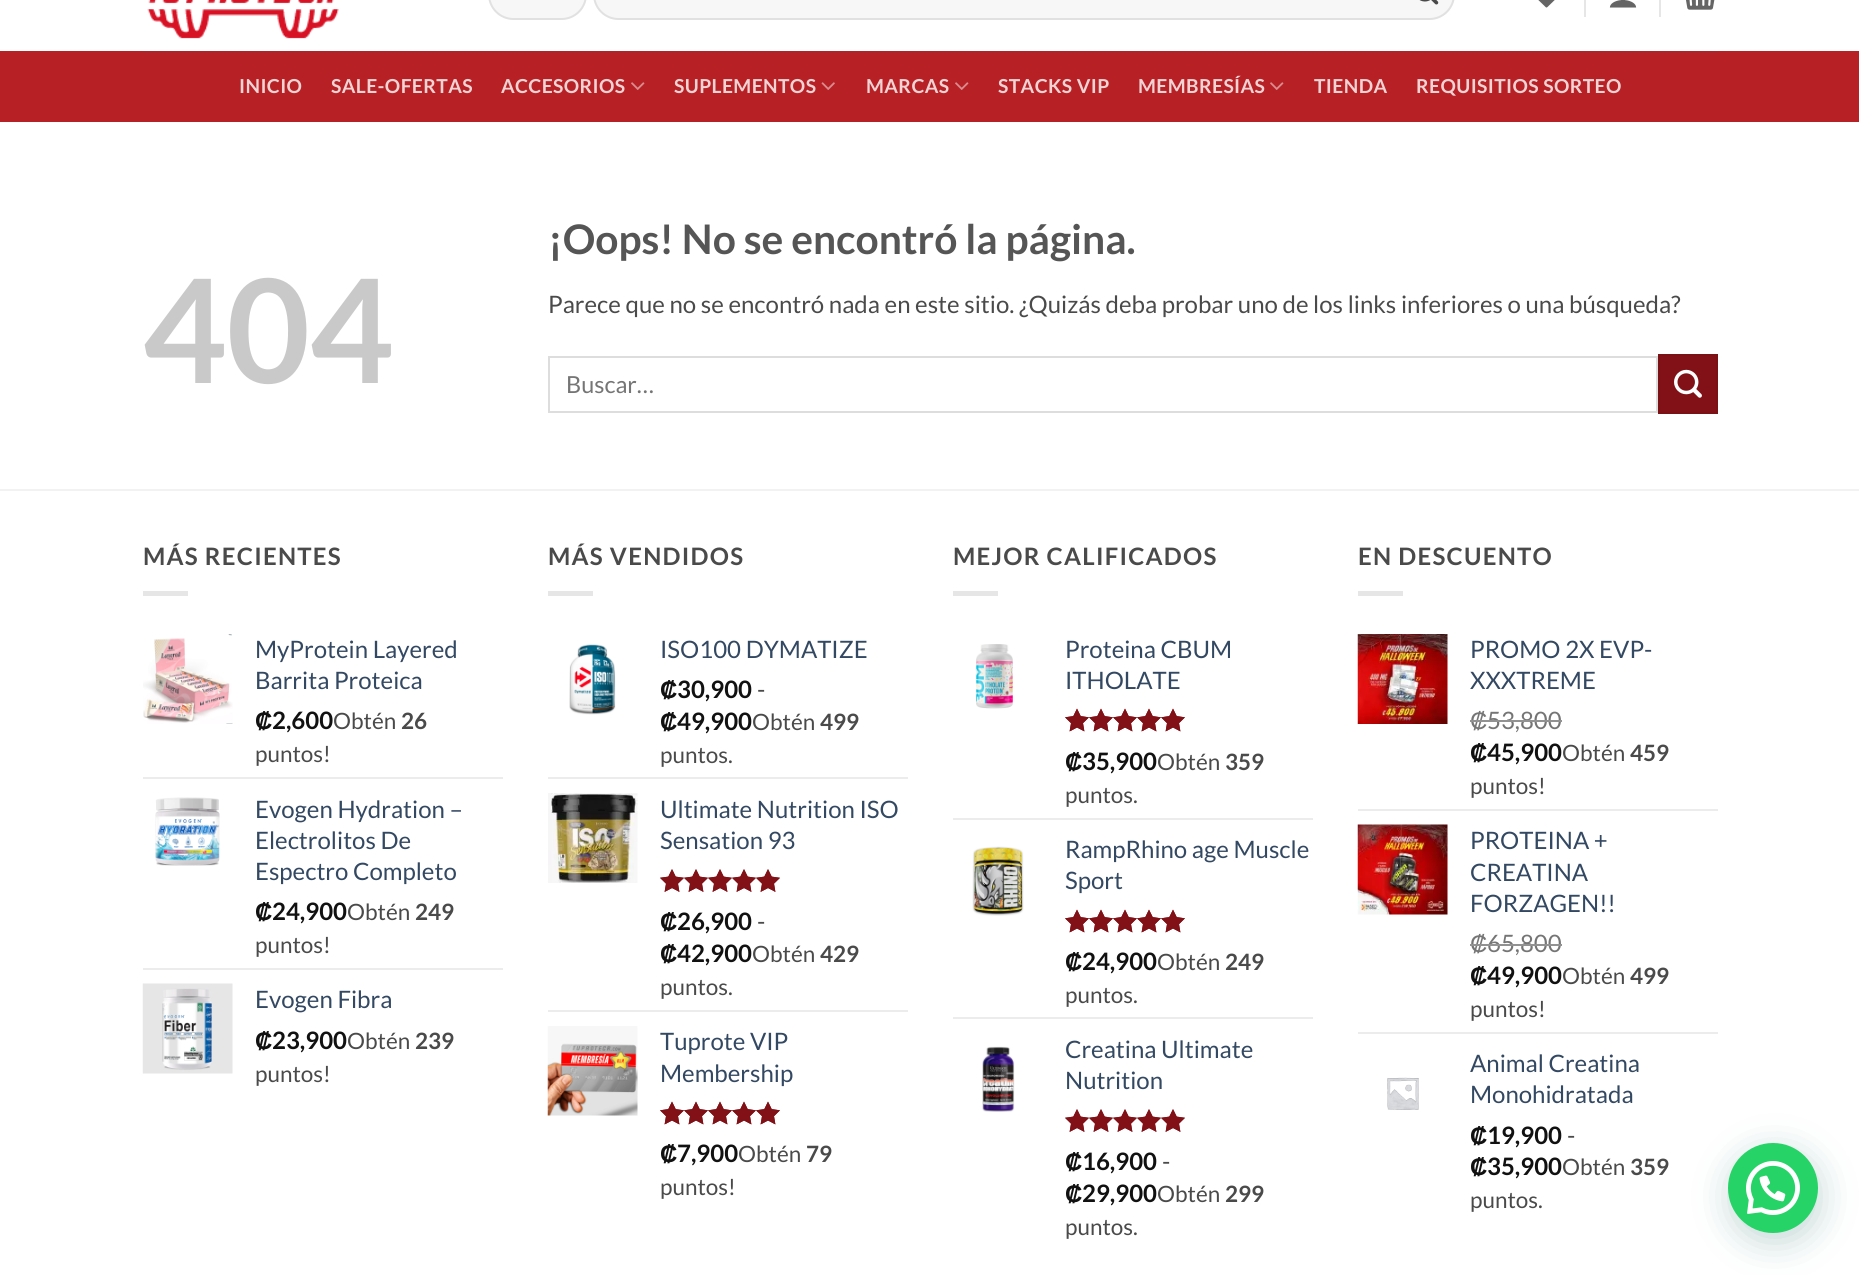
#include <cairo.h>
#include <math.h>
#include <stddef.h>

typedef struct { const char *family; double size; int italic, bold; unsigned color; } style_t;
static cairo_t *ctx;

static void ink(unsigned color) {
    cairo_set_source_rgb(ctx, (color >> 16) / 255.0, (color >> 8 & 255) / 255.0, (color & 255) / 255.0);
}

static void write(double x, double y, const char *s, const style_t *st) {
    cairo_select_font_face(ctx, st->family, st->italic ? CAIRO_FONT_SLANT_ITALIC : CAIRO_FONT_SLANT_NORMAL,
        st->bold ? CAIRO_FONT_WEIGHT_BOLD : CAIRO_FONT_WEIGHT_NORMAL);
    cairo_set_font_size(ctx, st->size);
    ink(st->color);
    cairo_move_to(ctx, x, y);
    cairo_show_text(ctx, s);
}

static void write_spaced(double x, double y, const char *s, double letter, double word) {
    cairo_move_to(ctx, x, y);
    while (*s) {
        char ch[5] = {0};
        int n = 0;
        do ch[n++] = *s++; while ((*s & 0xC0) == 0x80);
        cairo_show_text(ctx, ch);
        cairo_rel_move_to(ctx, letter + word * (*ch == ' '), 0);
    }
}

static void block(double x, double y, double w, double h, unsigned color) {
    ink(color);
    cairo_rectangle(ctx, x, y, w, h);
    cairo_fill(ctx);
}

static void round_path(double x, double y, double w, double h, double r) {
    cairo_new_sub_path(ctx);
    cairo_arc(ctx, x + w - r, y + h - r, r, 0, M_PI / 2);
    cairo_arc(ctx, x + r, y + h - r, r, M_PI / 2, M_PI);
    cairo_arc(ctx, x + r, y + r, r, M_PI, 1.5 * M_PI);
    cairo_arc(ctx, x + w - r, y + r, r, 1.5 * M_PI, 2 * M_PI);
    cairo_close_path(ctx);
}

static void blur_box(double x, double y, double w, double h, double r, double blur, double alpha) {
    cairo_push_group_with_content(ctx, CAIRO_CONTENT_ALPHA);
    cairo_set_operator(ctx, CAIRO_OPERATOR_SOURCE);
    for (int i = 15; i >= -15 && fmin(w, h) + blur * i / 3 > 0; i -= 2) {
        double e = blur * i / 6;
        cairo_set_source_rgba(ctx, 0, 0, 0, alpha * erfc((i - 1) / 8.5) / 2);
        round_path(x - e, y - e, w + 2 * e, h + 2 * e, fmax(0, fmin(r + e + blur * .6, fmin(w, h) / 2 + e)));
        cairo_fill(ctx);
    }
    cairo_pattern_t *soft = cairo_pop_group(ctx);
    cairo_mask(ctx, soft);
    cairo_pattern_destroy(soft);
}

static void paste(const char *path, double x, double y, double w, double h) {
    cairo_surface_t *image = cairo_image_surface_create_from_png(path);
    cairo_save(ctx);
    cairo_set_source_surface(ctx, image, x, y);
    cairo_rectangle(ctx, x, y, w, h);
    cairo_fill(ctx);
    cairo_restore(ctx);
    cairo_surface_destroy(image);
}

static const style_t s1 = {"Lato", 144, 0, 1, 0xc9c9c9};
static const style_t s2 = {"Lato", 40.75, 0, 1, 0x555555};
static const style_t s3 = {"Lato", 24, 0, 0, 0x4a4a4a};
static const style_t s4 = {"Lato", 23.5, 0, 0, 0x757575};
static const style_t s5 = {"Lato", 24, 0, 0, 0x334862};
static const style_t s6 = {"Liberation Sans", 24, 0, 1, 0x111111};
static const style_t s7 = {"Lato", 24, 0, 1, 0x111111};
static const style_t s8 = {"Lato", 22.5, 0, 0, 0x4a4a4a};
static const style_t s9 = {"Lato", 22.5, 0, 1, 0x4a4a4a};
static const style_t s10 = {"Liberation Sans", 24, 0, 0, 0x757575};
static const style_t s11 = {"Lato", 24, 0, 0, 0x757575};

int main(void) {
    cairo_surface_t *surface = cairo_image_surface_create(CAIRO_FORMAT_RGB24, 1859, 1275);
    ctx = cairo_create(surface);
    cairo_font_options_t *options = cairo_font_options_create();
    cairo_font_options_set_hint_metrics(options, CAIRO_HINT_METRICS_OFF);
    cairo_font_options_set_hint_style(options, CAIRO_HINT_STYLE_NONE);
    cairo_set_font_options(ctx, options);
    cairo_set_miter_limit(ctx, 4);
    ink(0xffffff);
    cairo_paint(ctx);
    paste("pic1.png", 147, 0, 192, 39);
    ink(0xf7f7f7);
    round_path(488, -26, 99, 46, 25.5);
    cairo_fill(ctx);
    round_path(489, -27, 97, 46, 24.5);
    cairo_set_source_rgba(ctx, 0, 0, 0, 0.09);
    cairo_stroke(ctx);
    ink(0xf7f7f7);
    round_path(593, -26, 862, 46, 25.5);
    cairo_fill(ctx);
    round_path(594, -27, 860, 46, 24.5);
    cairo_set_source_rgba(ctx, 0, 0, 0, 0.09);
    cairo_stroke(ctx);
    paste("pic2.png", 1419, 0, 20, 5);
    paste("pic3.png", 1538, 0, 17, 8);
    block(1584, 0, 2, 17, 0xe6e6e6);
    paste("pic4.png", 1609, 0, 28, 8);
    block(1659, 0, 2, 17, 0xe6e6e6);
    paste("pic5.png", 1686, 0, 29, 10);
    block(0, 51, 1859, 71, 0xb72126);
    block(143, 51, 1575, 2, 0xac252a);
    cairo_select_font_face(ctx, "Lato", CAIRO_FONT_SLANT_NORMAL, CAIRO_FONT_WEIGHT_BOLD);
    cairo_set_font_size(ctx, 19.25);
    ink(0xf1d3d4);
    write_spaced(239, 93, "INICIO", 0.4, 0);
    write_spaced(331, 93, "SALE-OFERTAS", 0.4, 0);
    write_spaced(501, 93, "ACCESORIOS", 0.4, 0);
    paste("pic6.png", 631, 82, 14, 8);
    write_spaced(674, 93, "SUPLEMENTOS", 0.4, 0);
    paste("pic7.png", 821, 82, 14, 8);
    write_spaced(866, 93, "MARCAS", 0.4, 0);
    paste("pic6.png", 955, 82, 14, 8);
    write_spaced(998, 93, "STACKS VIP", 0.4, 0);
    write_spaced(1138, 93, "MEMBRESÍAS", 0.4, 0);
    paste("pic6.png", 1270, 82, 14, 8);
    write_spaced(1314, 93, "TIENDA", 0.4, 0);
    write_spaced(1416, 93, "REQUISITIOS SORTEO", 0.4, 0);
    write(143, 383, "404", &s1);
    write(548, 254, "¡Oops! No se encontró la página.", &s2);
    write(548, 313, "Parece que no se encontró nada en este sitio. ¿Quizás deba probar uno de los links inferiores o una búsqueda?", &s3);
    cairo_rectangle(ctx, 549, 357, 1108, 55);
    ink(0xdddddd);
    cairo_stroke(ctx);
    write(566, 393, "Buscar…", &s4);
    ink(0x811116);
    cairo_rectangle(ctx, 1659, 355, 58, 58);
    cairo_fill_preserve(ctx);
    ink(0x7b1015);
    cairo_stroke(ctx);
    paste("pic8.png", 1674, 369, 28, 29);
    block(0, 489, 1859, 2, 0xf2f2f2);
    cairo_select_font_face(ctx, "Lato", CAIRO_FONT_SLANT_NORMAL, CAIRO_FONT_WEIGHT_BOLD);
    cairo_set_font_size(ctx, 24);
    ink(0x4a4a4a);
    write_spaced(143, 565, "MÁS RECIENTES", 1.25, 0);
    block(143, 591, 45, 5, 0xe6e6e6);
    paste("pic9.png", 143, 634, 90, 90);
    write(255, 658, "MyProtein Layered", &s5);
    write(255, 689, "Barrita Proteica", &s5);
    write(255, 729, "₡", &s6);
    write(272, 729, "2,600", &s7);
    write(333, 729, "Obtén", &s8);
    write(401, 729, "26", &s9);
    write(255, 762, "puntos!", &s8);
    block(143, 777, 360, 2, 0xececec);
    paste("pic10.png", 155, 797, 65, 69);
    write(255, 818, "Evogen Hydration –", &s5);
    write(255, 849, "Electrolitos De", &s5);
    write(255, 880, "Espectro Completo", &s5);
    write(255, 920, "₡", &s6);
    write(272, 920, "24,900", &s7);
    write(347, 920, "Obtén", &s8);
    write(415, 920, "249", &s9);
    write(255, 953, "puntos!", &s8);
    block(143, 968, 360, 2, 0xececec);
    paste("pic11.png", 142, 983, 91, 91);
    write(255, 1008, "Evogen Fibra", &s5);
    write(255, 1049, "₡", &s6);
    write(272, 1049, "23,900", &s7);
    write(347, 1049, "Obtén", &s8);
    write(415, 1049, "239", &s9);
    write(255, 1082, "puntos!", &s8);
    cairo_select_font_face(ctx, "Lato", CAIRO_FONT_SLANT_NORMAL, CAIRO_FONT_WEIGHT_BOLD);
    cairo_set_font_size(ctx, 24);
    write_spaced(548, 565, "MÁS VENDIDOS", 1.25, 0);
    block(548, 591, 45, 5, 0xe6e6e6);
    paste("pic12.png", 569, 644, 47, 71);
    write(660, 658, "ISO100 DYMATIZE", &s5);
    write(660, 698, "₡", &s6);
    write(677, 698, "30,900", &s7);
    write(757, 698, "-", &s3);
    write(660, 730, "₡", &s6);
    write(677, 730, "49,900", &s7);
    write(752, 730, "Obtén", &s8);
    write(820, 730, "499", &s9);
    write(660, 763, "puntos.", &s8);
    block(548, 777, 360, 2, 0xececec);
    paste("pic13.png", 548, 793, 90, 90);
    write(660, 818, "Ultimate Nutrition ISO", &s5);
    write(660, 849, "Sensation 93", &s5);
    paste("pic14.png", 660, 869, 120, 23);
    paste("pic15.png", 660, 869, 120, 23);
    write(660, 930, "₡", &s6);
    write(677, 930, "26,900", &s7);
    write(757, 930, "-", &s3);
    write(660, 962, "₡", &s6);
    write(677, 962, "42,900", &s7);
    write(752, 962, "Obtén", &s8);
    write(820, 962, "429", &s9);
    write(660, 995, "puntos.", &s8);
    block(548, 1010, 360, 2, 0xececec);
    paste("pic16.png", 547, 1026, 91, 90);
    write(660, 1050, "Tuprote VIP", &s5);
    write(660, 1082, "Membership", &s5);
    paste("pic17.png", 660, 1101, 120, 24);
    paste("pic18.png", 660, 1101, 120, 24);
    write(660, 1162, "₡", &s6);
    write(677, 1162, "7,900", &s7);
    write(738, 1162, "Obtén", &s8);
    write(806, 1162, "79", &s9);
    write(660, 1195, "puntos!", &s8);
    cairo_select_font_face(ctx, "Lato", CAIRO_FONT_SLANT_NORMAL, CAIRO_FONT_WEIGHT_BOLD);
    cairo_set_font_size(ctx, 24);
    write_spaced(953, 565, "MEJOR CALIFICADOS", 1.25, 0);
    block(953, 591, 45, 5, 0xe6e6e6);
    paste("pic19.png", 976, 644, 37, 65);
    write(1065, 658, "Proteina CBUM", &s5);
    write(1065, 689, "ITHOLATE", &s5);
    paste("pic17.png", 1065, 708, 120, 24);
    paste("pic18.png", 1065, 708, 120, 24);
    write(1065, 770, "₡", &s6);
    write(1082, 770, "35,900", &s7);
    write(1157, 770, "Obtén", &s8);
    write(1225, 770, "359", &s9);
    write(1065, 803, "puntos.", &s8);
    block(953, 818, 360, 2, 0xececec);
    paste("pic20.png", 972, 846, 52, 70);
    write(1065, 858, "RampRhino age Muscle", &s5);
    write(1065, 889, "Sport", &s5);
    paste("pic17.png", 1065, 909, 120, 24);
    paste("pic18.png", 1065, 909, 120, 24);
    write(1065, 970, "₡", &s6);
    write(1082, 970, "24,900", &s7);
    write(1157, 970, "Obtén", &s8);
    write(1225, 970, "249", &s9);
    write(1065, 1003, "puntos.", &s8);
    block(953, 1017, 360, 2, 0xececec);
    paste("pic21.png", 982, 1046, 33, 66);
    write(1065, 1058, "Creatina Ultimate", &s5);
    write(1065, 1089, "Nutrition", &s5);
    paste("pic14.png", 1065, 1109, 120, 23);
    paste("pic15.png", 1065, 1109, 120, 23);
    write(1065, 1170, "₡", &s6);
    write(1082, 1170, "16,900", &s7);
    write(1162, 1170, "-", &s3);
    write(1065, 1202, "₡", &s6);
    write(1082, 1202, "29,900", &s7);
    write(1157, 1202, "Obtén", &s8);
    write(1225, 1202, "299", &s9);
    write(1065, 1235, "puntos.", &s8);
    cairo_select_font_face(ctx, "Lato", CAIRO_FONT_SLANT_NORMAL, CAIRO_FONT_WEIGHT_BOLD);
    cairo_set_font_size(ctx, 24);
    write_spaced(1358, 565, "EN DESCUENTO", 1.25, 0);
    block(1358, 591, 45, 5, 0xe6e6e6);
    paste("pic22.png", 1357, 634, 91, 90);
    write(1470, 658, "PROMO 2X EVP-", &s5);
    write(1470, 689, "XXXTREME", &s5);
    write(1470, 729, "₡", &s10);
    block(1470, 720, 18, 2, 0x929292);
    write(1487, 729, "53,800", &s11);
    block(1488, 720, 74, 2, 0x929292);
    write(1470, 761, "₡", &s6);
    write(1487, 761, "45,900", &s7);
    write(1562, 761, "Obtén", &s8);
    write(1630, 761, "459", &s9);
    write(1470, 794, "puntos!", &s8);
    block(1358, 809, 360, 2, 0xececec);
    paste("pic23.png", 1357, 824, 91, 91);
    write(1470, 849, "PROTEINA +", &s5);
    write(1470, 881, "CREATINA", &s5);
    write(1470, 912, "FORZAGEN!!", &s5);
    write(1470, 952, "₡", &s10);
    write(1487, 952, "65,800", &s11);
    block(1470, 944, 18, 2, 0x929292);
    block(1488, 944, 74, 2, 0x929292);
    write(1470, 984, "₡", &s6);
    write(1487, 984, "49,900", &s7);
    write(1562, 984, "Obtén", &s8);
    write(1630, 984, "499", &s9);
    write(1470, 1017, "puntos!", &s8);
    block(1358, 1032, 360, 2, 0xececec);
    write(1470, 1072, "Animal Creatina", &s5);
    paste("pic24.png", 1387, 1077, 32, 33);
    write(1470, 1103, "Monohidratada", &s5);
    write(1470, 1144, "₡", &s6);
    write(1487, 1144, "19,900", &s7);
    write(1567, 1144, "-", &s3);
    write(1470, 1175, "₡", &s6);
    write(1487, 1175, "35,900", &s7);
    write(1562, 1175, "Obtén", &s8);
    write(1630, 1175, "359", &s9);
    write(1470, 1208, "puntos.", &s8);
    ink(0x075e54);
    blur_box(1730, 1152, 90, 90, 45, 18, 0.24);
    ink(0x25d366);
    cairo_arc(ctx, 1773, 1188, 45, 0, 2 * M_PI);
    cairo_fill(ctx);
    paste("pic25.png", 1746, 1161, 54, 54);
    cairo_surface_write_to_png(surface, "screenshot.png");
    cairo_font_options_destroy(options);
    cairo_destroy(ctx);
    cairo_surface_destroy(surface);
    return 0;
}
